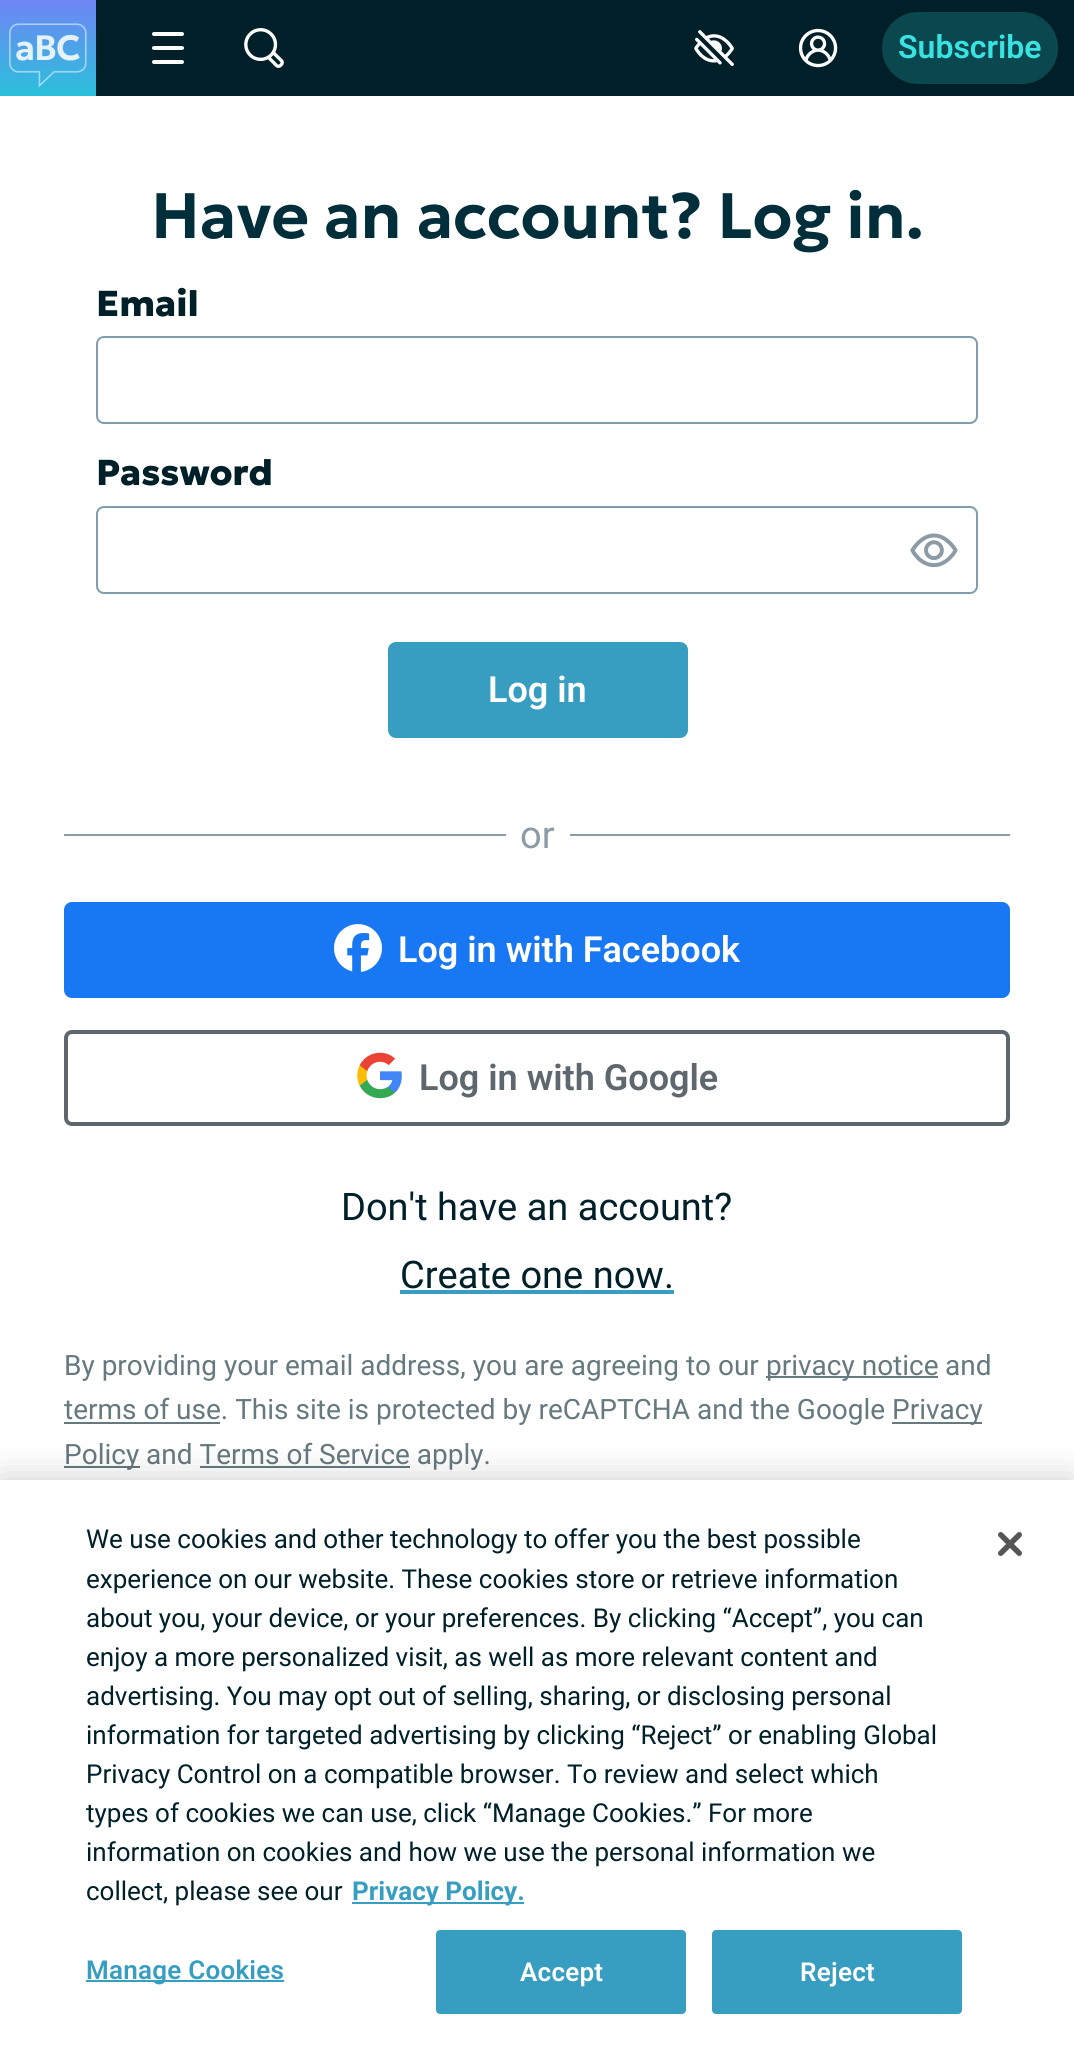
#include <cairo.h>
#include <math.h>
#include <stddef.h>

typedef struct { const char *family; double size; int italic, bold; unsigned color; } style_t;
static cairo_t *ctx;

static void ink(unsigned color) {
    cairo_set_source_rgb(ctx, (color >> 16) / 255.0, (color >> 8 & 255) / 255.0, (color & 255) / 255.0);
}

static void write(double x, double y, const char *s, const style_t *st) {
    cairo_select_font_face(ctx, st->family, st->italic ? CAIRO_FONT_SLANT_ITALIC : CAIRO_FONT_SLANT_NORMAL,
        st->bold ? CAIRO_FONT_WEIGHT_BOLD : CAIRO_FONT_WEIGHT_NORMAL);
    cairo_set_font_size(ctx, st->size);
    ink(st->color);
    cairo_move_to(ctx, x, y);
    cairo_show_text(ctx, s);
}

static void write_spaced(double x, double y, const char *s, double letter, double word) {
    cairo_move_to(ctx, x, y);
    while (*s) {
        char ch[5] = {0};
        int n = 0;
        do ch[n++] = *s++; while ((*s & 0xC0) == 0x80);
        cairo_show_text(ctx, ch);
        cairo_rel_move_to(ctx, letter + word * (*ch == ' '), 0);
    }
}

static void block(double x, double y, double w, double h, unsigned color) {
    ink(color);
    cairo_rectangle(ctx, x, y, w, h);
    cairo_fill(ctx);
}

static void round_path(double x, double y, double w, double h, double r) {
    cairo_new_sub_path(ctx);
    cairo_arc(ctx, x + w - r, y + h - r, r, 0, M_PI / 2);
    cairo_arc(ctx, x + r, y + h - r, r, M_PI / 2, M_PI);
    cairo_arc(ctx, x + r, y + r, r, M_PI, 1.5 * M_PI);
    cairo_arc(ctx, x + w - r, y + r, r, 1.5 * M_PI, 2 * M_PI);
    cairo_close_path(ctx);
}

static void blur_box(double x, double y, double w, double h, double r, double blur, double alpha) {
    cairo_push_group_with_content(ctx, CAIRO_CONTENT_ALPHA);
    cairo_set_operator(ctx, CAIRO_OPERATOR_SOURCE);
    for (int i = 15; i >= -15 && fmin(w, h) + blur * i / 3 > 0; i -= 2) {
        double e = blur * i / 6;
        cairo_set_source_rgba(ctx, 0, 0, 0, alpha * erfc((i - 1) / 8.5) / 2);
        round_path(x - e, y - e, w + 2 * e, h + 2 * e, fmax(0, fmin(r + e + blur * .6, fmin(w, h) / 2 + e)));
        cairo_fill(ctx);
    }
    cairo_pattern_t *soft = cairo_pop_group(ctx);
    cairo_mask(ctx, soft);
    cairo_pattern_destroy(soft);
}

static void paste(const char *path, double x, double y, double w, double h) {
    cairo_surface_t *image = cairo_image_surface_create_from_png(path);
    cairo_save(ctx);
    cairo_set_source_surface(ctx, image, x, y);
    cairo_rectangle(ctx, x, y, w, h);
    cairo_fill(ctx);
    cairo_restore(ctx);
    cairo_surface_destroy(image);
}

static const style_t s1 = {"Roboto SemiBold", 32, 0, 0, 0x39e3e1};
static const style_t s2 = {"Geologica SemiBold", 64, 0, 0, 0x002e3b};
static const style_t s3 = {"Geologica ExtraBold", 36, 0, 0, 0x002029};
static const style_t s4 = {"Roboto SemiBold", 36, 0, 0, 0xffffff};
static const style_t s5 = {"Roboto", 38, 0, 0, 0x8c9ba5};
static const style_t s6 = {"Roboto SemiBold", 36, 0, 0, 0x5e676d};
static const style_t s7 = {"Roboto", 38, 0, 0, 0x002029};
static const style_t s8 = {"Roboto", 28, 0, 0, 0x66797f};
static const style_t s9 = {"Roboto", 26, 0, 0, 0x002029};
static const style_t s10 = {"Roboto", 26, 0, 1, 0x379ec1};

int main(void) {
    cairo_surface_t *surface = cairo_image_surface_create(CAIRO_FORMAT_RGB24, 1074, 2054);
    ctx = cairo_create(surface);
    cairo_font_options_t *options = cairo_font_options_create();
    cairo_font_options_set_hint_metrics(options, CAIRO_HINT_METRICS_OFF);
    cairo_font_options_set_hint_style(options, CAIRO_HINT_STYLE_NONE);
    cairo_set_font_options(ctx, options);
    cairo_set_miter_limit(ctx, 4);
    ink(0xffffff);
    cairo_paint(ctx);
    block(96, 0, 978, 96, 0x002029);
    paste("pic1.png", 0, 0, 96, 96);
    ink(0xffffff);
    round_path(152, 32, 32, 4, 2);
    cairo_fill(ctx);
    round_path(152, 46, 32, 4, 2);
    cairo_fill(ctx);
    round_path(152, 60, 32, 4, 2);
    cairo_fill(ctx);
    paste("pic2.png", 244, 28, 40, 40);
    paste("pic3.png", 694, 30, 40, 36);
    paste("pic4.png", 798, 28, 40, 40);
    ink(0x0b474e);
    round_path(882, 12, 176, 72, 36);
    cairo_fill(ctx);
    write(898, 58, "Subscribe", &s1);
    write(151, 238, "Have an account? Log in.", &s2);
    write(96, 316, "Email", &s3);
    round_path(97, 337, 880, 86, 7);
    ink(0x819cac);
    cairo_stroke(ctx);
    write(96, 485, "Password", &s3);
    round_path(97, 507, 880, 86, 7);
    ink(0x819cac);
    cairo_stroke(ctx);
    paste("pic5.png", 910, 533, 48, 35);
    ink(0x379ec1);
    round_path(388, 642, 300, 96, 8);
    cairo_fill(ctx);
    write(488, 702, "Log in", &s4);
    block(64, 834, 442, 2, 0x8c9ba5);
    write(520, 848, "or", &s5);
    block(570, 834, 440, 2, 0x8c9ba5);
    ink(0x1877f2);
    round_path(66, 904, 942, 92, 6);
    cairo_fill_preserve(ctx);
    cairo_set_line_width(ctx, 4);
    cairo_stroke(ctx);
    paste("pic6.png", 334, 924, 48, 48);
    write(398, 962, "Log in with Facebook", &s4);
    round_path(66, 1032, 942, 92, 6);
    ink(0x5e676d);
    cairo_stroke(ctx);
    paste("pic7.png", 357, 1052, 45, 47);
    write(419, 1090, "Log in with Google", &s6);
    write(341, 1220, "Don't have an account?", &s7);
    write(400, 1288, "Create one now.", &s7);
    block(400, 1290, 274, 4, 0x379ec1);
    write(64, 1375, "By providing your email address, you are agreeing to our", &s8);
    block(766, 1376, 172, 2, 0x66797f);
    write(766, 1375, "privacy notice", &s8);
    write(945, 1375, "and", &s8);
    block(64, 1422, 156, 2, 0x66797f);
    write(64, 1419, "terms of use. This site is protected by reCAPTCHA and the Google", &s8);
    block(892, 1422, 90, 2, 0x66797f);
    write(892, 1419, "Privacy", &s8);
    block(64, 1466, 76, 2, 0x66797f);
    write(64, 1464, "Policy", &s8);
    write(146, 1464, "and Terms of Service apply.", &s8);
    block(200, 1466, 210, 2, 0x66797f);
    ink(0x000000);
    blur_box(0, 1480, 1074, 574, 0, 18, 0.2);
    block(0, 1480, 1074, 574, 0xffffff);
    write(86, 1548, "We use cookies and other technology to offer you the best possible", &s9);
    write(86, 1588, "experience on our website. These cookies store or retrieve information", &s9);
    write(86, 1627, "about you, your device, or your preferences. By clicking “Accept”, you can", &s9);
    write(86, 1666, "enjoy a more personalized visit, as well as more relevant content and", &s9);
    write(86, 1705, "advertising. You may opt out of selling, sharing, or disclosing personal", &s9);
    write(86, 1744, "information for targeted advertising by clicking “Reject” or enabling Global", &s9);
    write(86, 1783, "Privacy Control on a compatible browser. To review and select which", &s9);
    write(86, 1822, "types of cookies we can use, click “Manage Cookies.” For more", &s9);
    write(86, 1861, "information on cookies and how we use the personal information we", &s9);
    write(86, 1900, "collect, please see our", &s9);
    block(352, 1902, 172, 2, 0x379ec1);
    write(352, 1900, "Privacy Policy.", &s10);
    block(86, 1980, 198, 2, 0x379ec1);
    cairo_select_font_face(ctx, "Roboto SemiBold", CAIRO_FONT_SLANT_NORMAL, CAIRO_FONT_WEIGHT_NORMAL);
    write_spaced(86, 1979, "Manage Cookies", 0.25, 0);
    round_path(437, 1931, 248, 82, 3);
    cairo_fill_preserve(ctx);
    cairo_set_line_width(ctx, 2);
    cairo_stroke(ctx);
    ink(0xffffff);
    write_spaced(520, 1981, "Accept", 0.25, 0);
    ink(0x379ec1);
    round_path(713, 1931, 248, 82, 3);
    cairo_fill_preserve(ctx);
    cairo_stroke(ctx);
    ink(0xffffff);
    write_spaced(800, 1981, "Reject", 0.25, 0);
    paste("pic8.png", 998, 1532, 24, 24);
    cairo_surface_write_to_png(surface, "screenshot.png");
    cairo_font_options_destroy(options);
    cairo_destroy(ctx);
    cairo_surface_destroy(surface);
    return 0;
}
